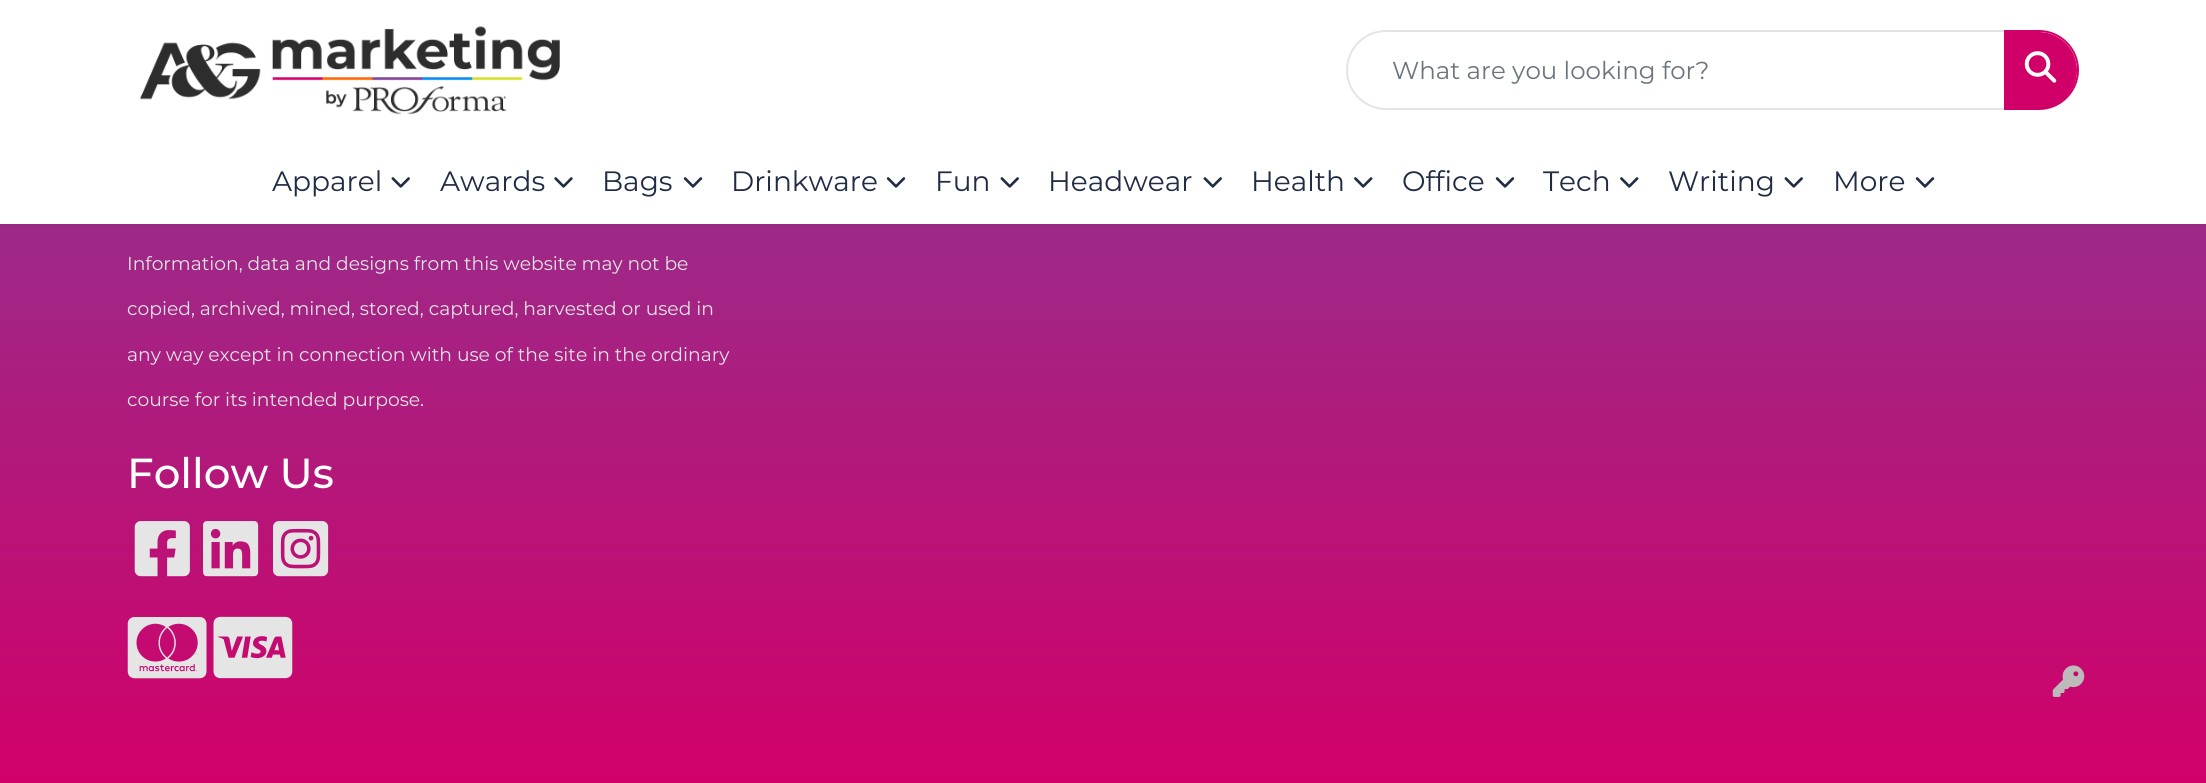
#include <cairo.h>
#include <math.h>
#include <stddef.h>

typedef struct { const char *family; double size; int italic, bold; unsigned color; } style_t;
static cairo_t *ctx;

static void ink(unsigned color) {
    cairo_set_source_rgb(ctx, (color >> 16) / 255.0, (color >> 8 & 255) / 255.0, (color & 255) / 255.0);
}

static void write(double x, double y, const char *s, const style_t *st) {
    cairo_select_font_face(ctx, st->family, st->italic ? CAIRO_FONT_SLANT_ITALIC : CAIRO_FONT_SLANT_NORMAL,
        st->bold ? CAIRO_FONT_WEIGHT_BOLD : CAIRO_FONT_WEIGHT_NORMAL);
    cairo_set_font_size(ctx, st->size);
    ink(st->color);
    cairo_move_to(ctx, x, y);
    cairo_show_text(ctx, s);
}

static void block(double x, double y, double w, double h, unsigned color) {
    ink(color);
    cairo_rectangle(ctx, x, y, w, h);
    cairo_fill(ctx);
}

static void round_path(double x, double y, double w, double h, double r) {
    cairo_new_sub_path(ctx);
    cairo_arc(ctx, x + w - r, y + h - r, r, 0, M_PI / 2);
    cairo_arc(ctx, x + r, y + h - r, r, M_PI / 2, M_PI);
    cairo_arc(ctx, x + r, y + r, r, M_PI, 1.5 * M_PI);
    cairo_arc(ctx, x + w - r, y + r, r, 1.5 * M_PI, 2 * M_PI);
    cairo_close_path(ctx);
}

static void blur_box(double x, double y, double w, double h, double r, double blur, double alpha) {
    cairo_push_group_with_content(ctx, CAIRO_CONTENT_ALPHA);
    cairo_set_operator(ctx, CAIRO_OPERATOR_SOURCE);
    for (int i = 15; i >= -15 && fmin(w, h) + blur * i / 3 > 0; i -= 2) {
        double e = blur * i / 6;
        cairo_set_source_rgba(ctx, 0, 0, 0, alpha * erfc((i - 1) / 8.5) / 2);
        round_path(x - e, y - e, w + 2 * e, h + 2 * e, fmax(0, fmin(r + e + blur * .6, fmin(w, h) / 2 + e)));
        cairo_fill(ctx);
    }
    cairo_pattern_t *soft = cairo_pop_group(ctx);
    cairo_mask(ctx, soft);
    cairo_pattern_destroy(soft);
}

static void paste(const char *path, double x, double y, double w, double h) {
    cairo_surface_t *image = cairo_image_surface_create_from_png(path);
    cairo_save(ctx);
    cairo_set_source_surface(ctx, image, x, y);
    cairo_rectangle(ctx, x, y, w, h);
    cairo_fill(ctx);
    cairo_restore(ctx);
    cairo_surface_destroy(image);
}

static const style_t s1 = {"Montserrat Thin", 24.5, 0, 0, 0x6c757d};
static const style_t s2 = {"Montserrat Thin", 28, 0, 0, 0x202c44};
static const style_t s3 = {"Montserrat Thin", 18.7, 0, 0, 0xe5e5e5};
static const style_t s4 = {"Montserrat Medium", 42, 0, 0, 0xffffff};

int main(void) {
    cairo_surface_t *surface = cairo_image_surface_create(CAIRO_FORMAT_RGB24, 2206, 783);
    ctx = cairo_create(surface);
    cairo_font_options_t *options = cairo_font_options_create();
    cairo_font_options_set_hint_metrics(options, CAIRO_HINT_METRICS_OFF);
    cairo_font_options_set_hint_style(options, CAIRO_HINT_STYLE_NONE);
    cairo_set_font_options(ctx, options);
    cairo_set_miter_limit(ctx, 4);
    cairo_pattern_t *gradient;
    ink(0xffffff);
    cairo_paint(ctx);
    gradient = cairo_pattern_create_linear(1103, -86, 1103, 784);
    cairo_pattern_add_color_stop_rgba(gradient, 0, 0.502, 0.251, 0.6, 1);
    cairo_pattern_add_color_stop_rgba(gradient, 1, 0.82, 0, 0.412, 1);
    cairo_set_source(ctx, gradient);
    cairo_pattern_destroy(gradient);
    cairo_rectangle(ctx, 0, 224, 2206, 559);
    cairo_fill(ctx);
    ink(0x000000);
    blur_box(0, 0, 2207, 224, 0, 4.5, 0.1);
    block(0, 0, 2206, 224, 0xffffff);
    paste("pic1.png", 140, 26, 420, 89);
    cairo_new_path(ctx);
    cairo_move_to(ctx, 1386, 31);
    cairo_line_to(ctx, 2005, 31);
    cairo_line_to(ctx, 2005, 109);
    cairo_line_to(ctx, 1386, 109);
    cairo_curve_to(ctx, 1364.5, 109, 1347, 91.5, 1347, 70);
    cairo_curve_to(ctx, 1347, 48.5, 1364.5, 31, 1386, 31);
    cairo_close_path(ctx);
    ink(0xe4e4e4);
    cairo_stroke(ctx);
    write(1392, 79, "What are you looking for?", &s1);
    ink(0xd10069);
    cairo_new_path(ctx);
    cairo_move_to(ctx, 2004, 32);
    cairo_line_to(ctx, 2038.5, 32);
    cairo_curve_to(ctx, 2060, 32, 2077, 49, 2077, 70.5);
    cairo_curve_to(ctx, 2077, 92, 2060, 109, 2038.5, 109);
    cairo_line_to(ctx, 2004, 109);
    cairo_close_path(ctx);
    cairo_fill(ctx);
    cairo_set_fill_rule(ctx, CAIRO_FILL_RULE_EVEN_ODD);
    cairo_new_path(ctx);
    cairo_move_to(ctx, 2004, 30);
    cairo_line_to(ctx, 2039, 30);
    cairo_curve_to(ctx, 2061, 30, 2079, 48, 2079, 70);
    cairo_curve_to(ctx, 2079, 92, 2061, 110, 2039, 110);
    cairo_line_to(ctx, 2004, 110);
    cairo_close_path(ctx);
    cairo_move_to(ctx, 2004, 32);
    cairo_line_to(ctx, 2039, 32);
    cairo_curve_to(ctx, 2060, 32, 2077, 49, 2077, 70);
    cairo_curve_to(ctx, 2077, 91, 2060, 108, 2039, 108);
    cairo_line_to(ctx, 2004, 108);
    cairo_close_path(ctx);
    cairo_fill(ctx);
    paste("pic2.png", 2024, 51, 33, 32);
    write(272, 191, "Apparel", &s2);
    paste("pic3.png", 391, 177, 19, 11);
    write(440, 191, "Awards", &s2);
    paste("pic4.png", 554, 177, 19, 11);
    write(602, 191, "Bags", &s2);
    paste("pic5.png", 683, 177, 20, 11);
    write(731, 191, "Drinkware", &s2);
    paste("pic5.png", 886, 177, 20, 11);
    write(935, 191, "Fun", &s2);
    paste("pic3.png", 1000, 177, 19, 11);
    write(1048, 191, "Headwear", &s2);
    paste("pic3.png", 1203, 177, 19, 11);
    write(1251, 191, "Health", &s2);
    paste("pic6.png", 1354, 177, 19, 11);
    write(1402, 191, "Office", &s2);
    paste("pic5.png", 1495, 177, 20, 11);
    write(1543, 191, "Tech", &s2);
    paste("pic6.png", 1620, 177, 19, 11);
    write(1668, 191, "Writing", &s2);
    paste("pic3.png", 1784, 177, 19, 11);
    write(1833, 191, "More", &s2);
    paste("pic5.png", 1915, 177, 20, 11);
    write(127, 270, "Information, data and designs from this website may not be", &s3);
    write(127, 315, "copied, archived, mined, stored, captured, harvested or used in", &s3);
    write(127, 361, "any way except in connection with use of the site in the ordinary", &s3);
    write(127, 406, "course for its intended purpose.", &s3);
    write(127, 488, "Follow Us", &s4);
    paste("pic7.png", 134, 521, 56, 56);
    paste("pic8.png", 203, 521, 56, 56);
    paste("pic9.png", 273, 521, 56, 56);
    paste("pic10.png", 127, 617, 80, 62);
    paste("pic11.png", 213, 616, 80, 63);
    paste("pic12.png", 2052, 665, 33, 32);
    cairo_surface_write_to_png(surface, "screenshot.png");
    cairo_font_options_destroy(options);
    cairo_destroy(ctx);
    cairo_surface_destroy(surface);
    return 0;
}
